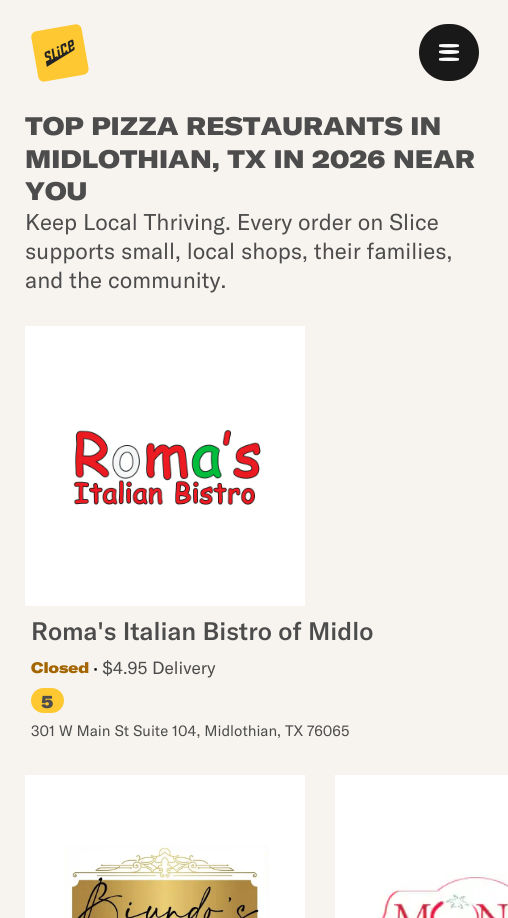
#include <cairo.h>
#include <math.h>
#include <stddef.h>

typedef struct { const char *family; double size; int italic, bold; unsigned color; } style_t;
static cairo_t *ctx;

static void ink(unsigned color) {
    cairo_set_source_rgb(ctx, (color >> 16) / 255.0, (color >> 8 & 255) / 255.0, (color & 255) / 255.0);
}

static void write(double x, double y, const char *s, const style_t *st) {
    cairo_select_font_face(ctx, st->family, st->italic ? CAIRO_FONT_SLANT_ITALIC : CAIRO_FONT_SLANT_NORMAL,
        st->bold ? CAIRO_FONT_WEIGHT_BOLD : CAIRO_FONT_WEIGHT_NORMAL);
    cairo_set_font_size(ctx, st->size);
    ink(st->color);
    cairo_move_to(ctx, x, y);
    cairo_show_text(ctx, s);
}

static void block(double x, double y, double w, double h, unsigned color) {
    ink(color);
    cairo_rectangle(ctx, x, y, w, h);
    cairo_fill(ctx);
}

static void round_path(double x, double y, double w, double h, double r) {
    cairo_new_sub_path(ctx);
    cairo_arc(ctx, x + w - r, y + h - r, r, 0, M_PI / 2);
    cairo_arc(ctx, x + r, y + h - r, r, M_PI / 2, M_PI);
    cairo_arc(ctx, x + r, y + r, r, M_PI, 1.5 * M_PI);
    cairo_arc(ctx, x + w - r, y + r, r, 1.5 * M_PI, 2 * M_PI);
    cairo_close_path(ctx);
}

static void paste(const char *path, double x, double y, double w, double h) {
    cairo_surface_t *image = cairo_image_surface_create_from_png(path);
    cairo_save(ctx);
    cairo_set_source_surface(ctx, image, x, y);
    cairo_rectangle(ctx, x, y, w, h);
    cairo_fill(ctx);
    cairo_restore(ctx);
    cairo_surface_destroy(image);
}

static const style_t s1 = {"GT America Black", 25, 0, 0, 0x4c4c4c};
static const style_t s2 = {"GT America", 22.5, 0, 0, 0x4c4c4c};
static const style_t s3 = {"GT America Medium", 25, 0, 0, 0x4c4c4c};
static const style_t s4 = {"GT America Black", 15, 0, 0, 0xa36500};
static const style_t s5 = {"GT America", 20, 0, 0, 0x000000};
static const style_t s6 = {"GT America", 17.5, 0, 0, 0x4c4c4c};
static const style_t s7 = {"GT America Black", 17.5, 0, 0, 0x4c4c4c};
static const style_t s8 = {"GT America", 15, 0, 0, 0x4c4c4c};

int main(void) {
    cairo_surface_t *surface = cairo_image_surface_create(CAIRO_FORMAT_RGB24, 508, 918);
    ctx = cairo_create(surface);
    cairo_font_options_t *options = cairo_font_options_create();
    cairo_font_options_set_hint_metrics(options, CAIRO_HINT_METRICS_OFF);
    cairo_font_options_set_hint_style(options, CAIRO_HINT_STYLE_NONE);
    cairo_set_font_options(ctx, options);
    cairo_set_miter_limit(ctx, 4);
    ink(0xf7f4ef);
    cairo_paint(ctx);
    paste("pic1.png", 31, 24, 58, 58);
    ink(0x191919);
    round_path(419, 24, 60, 57, 28.5);
    cairo_fill(ctx);
    ink(0xfcfcfc);
    cairo_new_path(ctx);
    cairo_move_to(ctx, 449, 50);
    cairo_curve_to(ctx, 454.5, 50, 459, 50.5, 459, 51);
    cairo_line_to(ctx, 459, 52.5);
    cairo_curve_to(ctx, 459, 53.5, 454.5, 54, 449, 54);
    cairo_curve_to(ctx, 443, 54, 439, 53.5, 439, 52.5);
    cairo_line_to(ctx, 439, 51);
    cairo_curve_to(ctx, 439, 50.5, 443, 50, 449, 50);
    cairo_close_path(ctx);
    cairo_fill(ctx);
    cairo_new_path(ctx);
    cairo_move_to(ctx, 449, 44);
    cairo_curve_to(ctx, 454.5, 44, 459, 44, 459, 45);
    cairo_line_to(ctx, 459, 46.5);
    cairo_curve_to(ctx, 459, 47, 454.5, 47.5, 449, 47.5);
    cairo_curve_to(ctx, 443, 47.5, 439, 47, 439, 46.5);
    cairo_line_to(ctx, 439, 45);
    cairo_curve_to(ctx, 439, 44, 443, 44, 449, 44);
    cairo_close_path(ctx);
    cairo_move_to(ctx, 449, 57.5);
    cairo_curve_to(ctx, 454.5, 57.5, 459, 58, 459, 58.5);
    cairo_line_to(ctx, 459, 60);
    cairo_curve_to(ctx, 459, 61, 454.5, 61, 449, 61);
    cairo_curve_to(ctx, 443, 61, 439, 61, 439, 60);
    cairo_line_to(ctx, 439, 58.5);
    cairo_curve_to(ctx, 439, 58, 443, 57.5, 449, 57.5);
    cairo_close_path(ctx);
    cairo_fill(ctx);
    write(25, 135, "TOP PIZZA RESTAURANTS IN", &s1);
    write(25, 168, "MIDLOTHIAN, TX IN 2026 NEAR", &s1);
    write(25, 200, "YOU", &s1);
    write(25, 230, "Keep Local Thriving. Every order on Slice", &s2);
    write(25, 259, "supports small, local shops, their families,", &s2);
    write(25, 288, "and the community.", &s2);
    block(25, 326, 280, 280, 0xffffff);
    paste("pic2.png", 73, 429, 189, 80);
    write(31, 640, "Roma's Italian Bistro of Midlo", &s3);
    write(31, 673, "Closed", &s4);
    write(93, 675, "·", &s5);
    write(102, 674, "$4.95 Delivery", &s6);
    ink(0xfdc831);
    round_path(31, 688, 33, 25, 12.5);
    cairo_fill(ctx);
    write(41, 708, "5", &s7);
    write(31, 736, "301 W Main St Suite 104, Midlothian, TX 76065", &s8);
    block(25, 775, 280, 143, 0xffffff);
    paste("pic3.png", 63, 845, 206, 73);
    block(335, 775, 173, 143, 0xffffff);
    paste("pic4.png", 378, 874, 130, 44);
    cairo_surface_write_to_png(surface, "screenshot.png");
    cairo_font_options_destroy(options);
    cairo_destroy(ctx);
    cairo_surface_destroy(surface);
    return 0;
}
